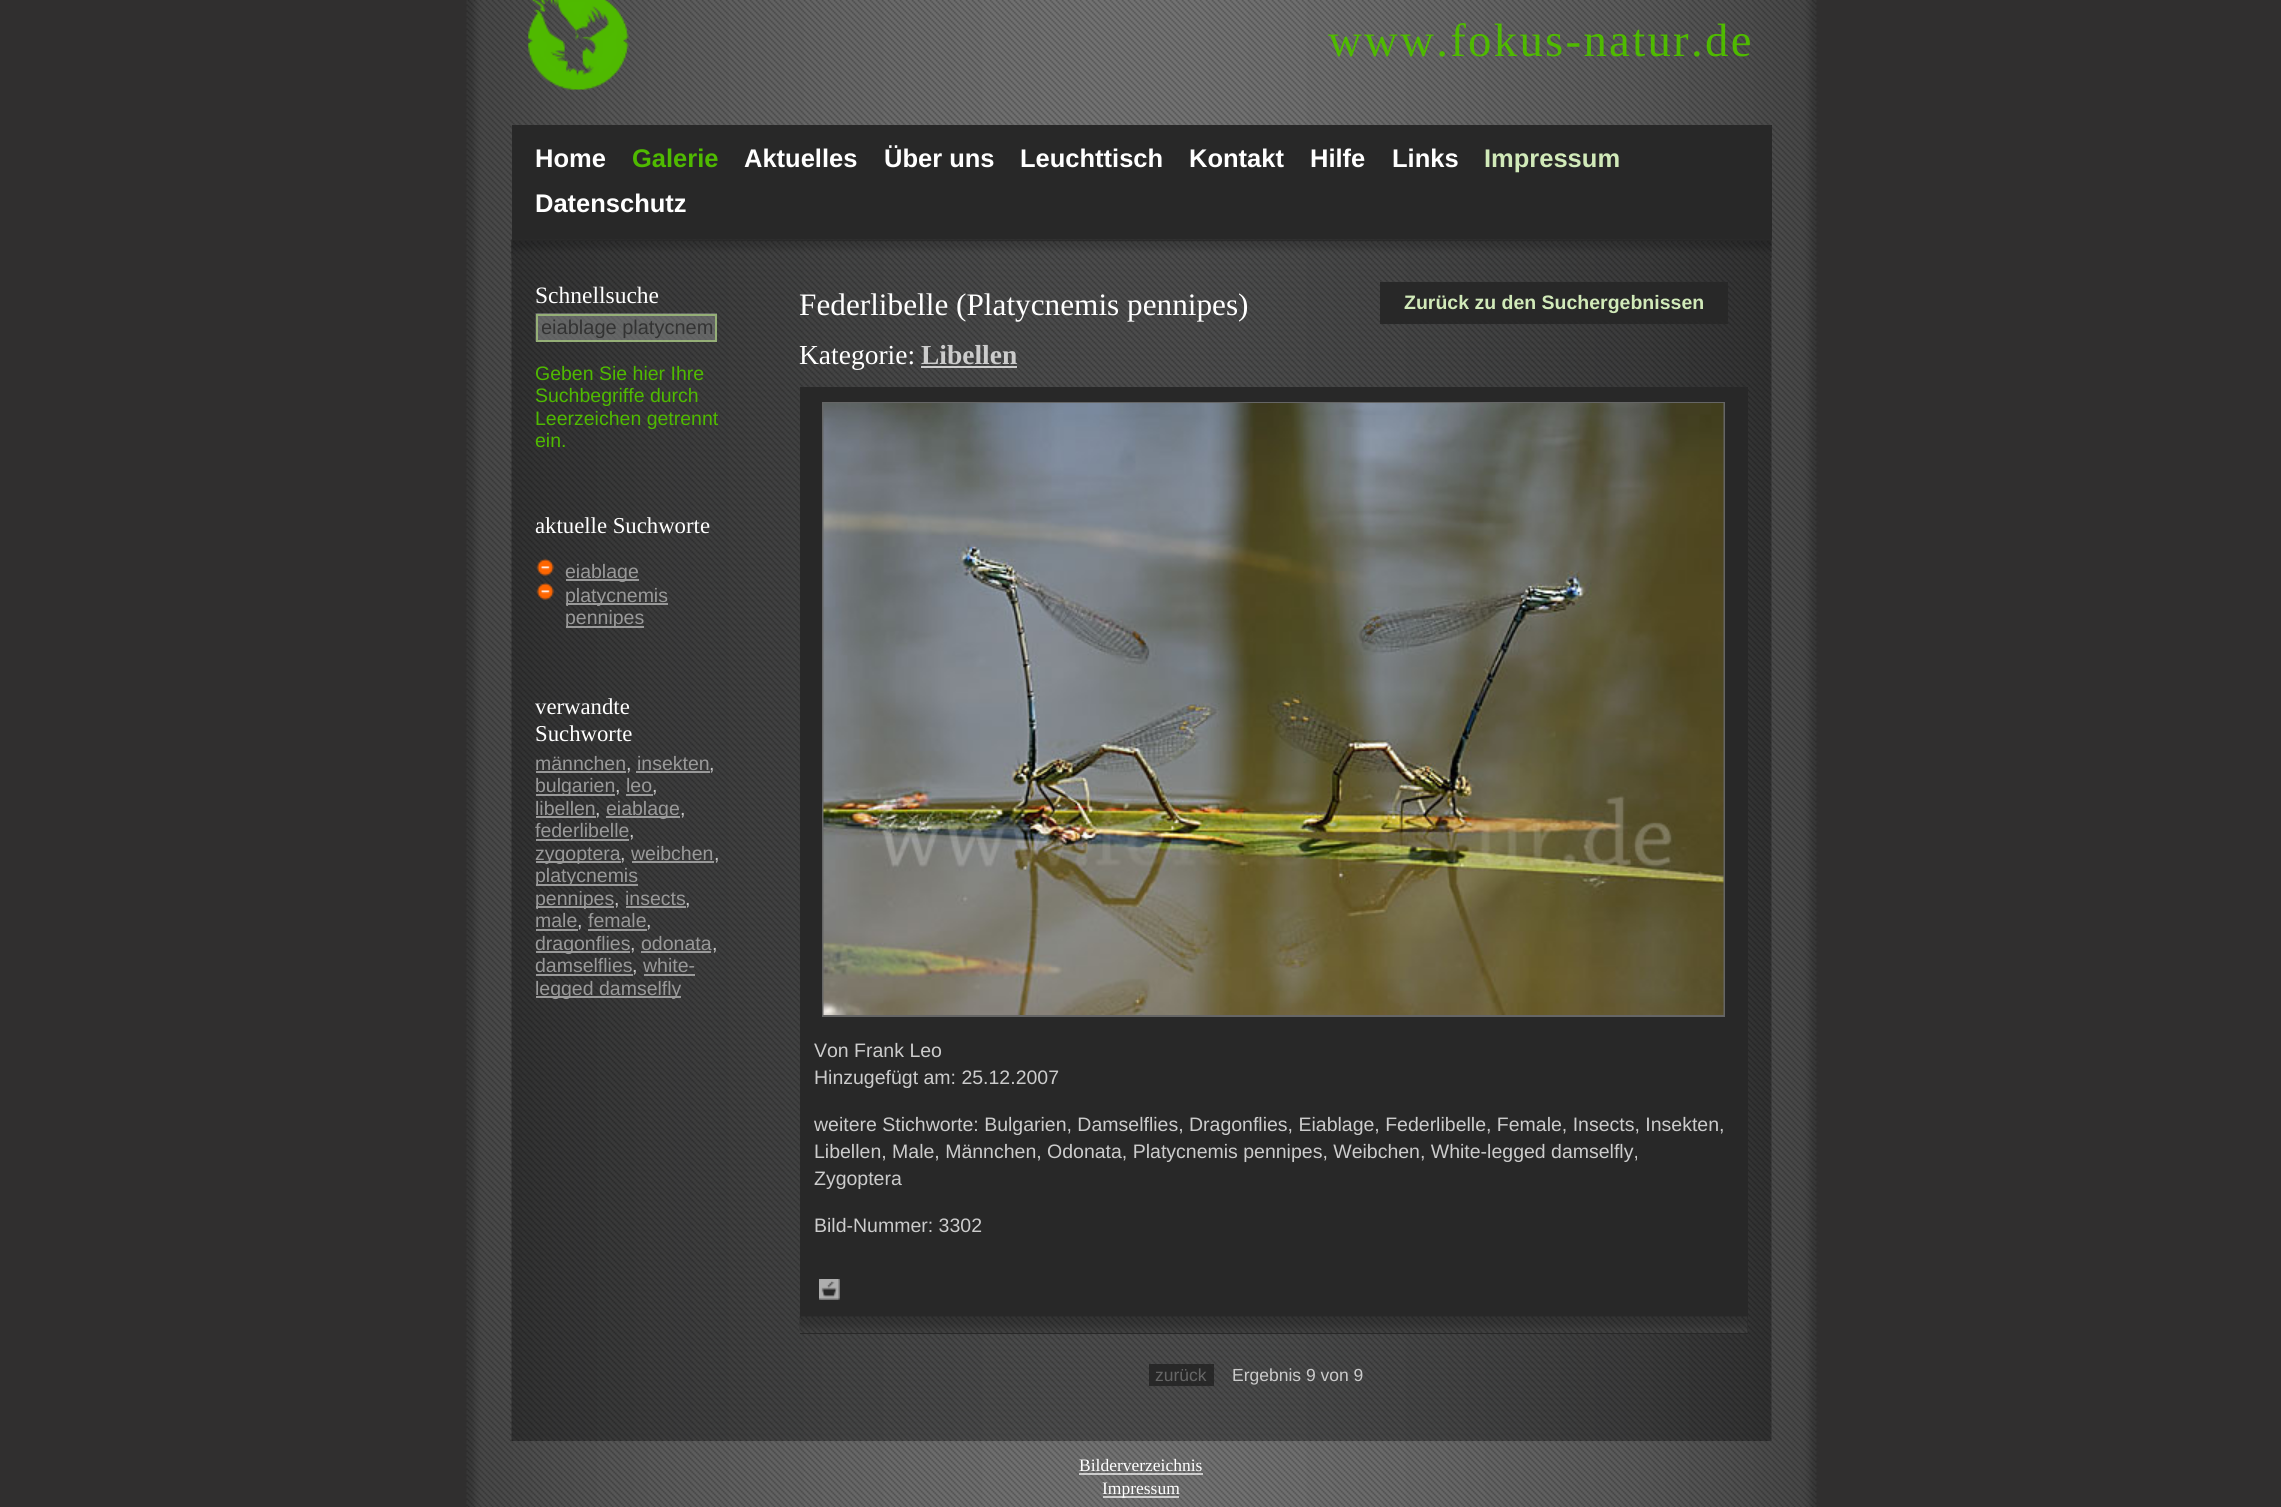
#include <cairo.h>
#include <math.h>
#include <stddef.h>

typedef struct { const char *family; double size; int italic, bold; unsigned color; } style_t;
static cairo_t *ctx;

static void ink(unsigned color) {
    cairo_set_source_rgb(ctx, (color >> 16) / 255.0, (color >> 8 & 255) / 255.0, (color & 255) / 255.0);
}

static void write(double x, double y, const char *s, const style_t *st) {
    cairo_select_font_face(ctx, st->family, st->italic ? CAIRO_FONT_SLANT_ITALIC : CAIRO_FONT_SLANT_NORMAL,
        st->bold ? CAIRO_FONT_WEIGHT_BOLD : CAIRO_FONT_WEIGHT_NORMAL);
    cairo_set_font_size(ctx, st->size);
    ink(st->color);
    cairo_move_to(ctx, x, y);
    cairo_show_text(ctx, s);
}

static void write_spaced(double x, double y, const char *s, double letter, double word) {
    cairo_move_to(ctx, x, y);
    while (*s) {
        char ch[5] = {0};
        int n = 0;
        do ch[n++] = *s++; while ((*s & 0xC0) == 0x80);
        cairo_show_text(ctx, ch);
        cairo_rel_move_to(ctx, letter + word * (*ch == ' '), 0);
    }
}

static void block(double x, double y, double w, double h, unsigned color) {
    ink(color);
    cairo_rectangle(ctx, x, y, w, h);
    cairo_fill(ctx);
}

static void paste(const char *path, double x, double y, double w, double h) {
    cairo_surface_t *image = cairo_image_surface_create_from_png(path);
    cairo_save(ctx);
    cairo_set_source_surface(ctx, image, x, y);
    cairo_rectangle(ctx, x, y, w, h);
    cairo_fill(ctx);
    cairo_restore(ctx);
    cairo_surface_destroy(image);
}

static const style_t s1 = {"Liberation Sans", 25.5, 0, 1, 0xffffff};
static const style_t s2 = {"Liberation Sans", 25.5, 0, 1, 0x4fba00};
static const style_t s3 = {"Liberation Sans", 25.5, 0, 1, 0xd1eab9};
static const style_t s4 = {"Liberation Serif", 23.5, 0, 0, 0xffffff};
static const style_t s5 = {"Liberation Sans", 20, 0, 0, 0x333333};
static const style_t s6 = {"Liberation Sans", 19.5, 0, 0, 0x4fba00};
static const style_t s7 = {"Liberation Serif", 22.75, 0, 0, 0xffffff};
static const style_t s8 = {"Liberation Sans", 19.5, 0, 0, 0x999999};
static const style_t s9 = {"Liberation Sans", 19.5, 0, 0, 0xcccccc};
static const style_t s10 = {"Liberation Serif", 31.25, 0, 0, 0xffffff};
static const style_t s11 = {"Liberation Serif", 27.5, 0, 0, 0xffffff};
static const style_t s12 = {"Liberation Serif", 27.5, 0, 1, 0xcccccc};
static const style_t s13 = {"Liberation Sans", 17.5, 0, 0, 0x666666};
static const style_t s14 = {"Liberation Sans", 17.5, 0, 0, 0xcccccc};
static const style_t s15 = {"Liberation Sans", 19.5, 0, 1, 0xd1eab9};
static const style_t s16 = {"Liberation Serif", 17.5, 0, 0, 0xffffff};

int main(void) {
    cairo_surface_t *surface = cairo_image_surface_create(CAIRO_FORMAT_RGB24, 2281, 1507);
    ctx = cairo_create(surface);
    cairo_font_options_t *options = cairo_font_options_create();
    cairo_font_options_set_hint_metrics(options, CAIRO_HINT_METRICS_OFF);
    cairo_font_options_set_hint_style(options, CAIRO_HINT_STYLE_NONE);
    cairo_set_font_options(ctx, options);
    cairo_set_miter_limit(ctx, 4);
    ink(0x302f2f);
    cairo_paint(ctx);
    paste("pic1.png", 466, 0, 1351, 1507);
    paste("pic2.png", 528, 0, 101, 90);
    cairo_select_font_face(ctx, "Liberation Serif", CAIRO_FONT_SLANT_NORMAL, CAIRO_FONT_WEIGHT_NORMAL);
    cairo_set_font_size(ctx, 46.75);
    ink(0x4fba00);
    write_spaced(1328, 56, "www.fokus-natur.de", 2.3, 0);
    block(512, 125, 1260, 115, 0x282828);
    write(535, 167, "Home", &s1);
    write(632, 167, "Galerie", &s2);
    write(744, 167, "Aktuelles", &s1);
    write(884, 167, "Über uns", &s1);
    write(1020, 167, "Leuchttisch", &s1);
    write(1189, 167, "Kontakt", &s1);
    write(1310, 167, "Hilfe", &s1);
    write(1392, 167, "Links", &s1);
    write(1484, 167, "Impressum", &s3);
    write(535, 212, "Datenschutz", &s1);
    paste("pic3.png", 511, 239, 1261, 1202);
    paste("pic4.png", 511, 239, 1261, 19);
    write(535, 303, "Schnellsuche", &s4);
    paste("pic5.png", 535, 313, 182, 29);
    cairo_rectangle(ctx, 537, 315, 179, 26);
    ink(0x95af77);
    cairo_stroke(ctx);
    cairo_save(ctx);
    cairo_rectangle(ctx, 542, 317, 171, 22);
    cairo_clip(ctx);
    write(541, 334, "eiablage platycnem", &s5);
    cairo_restore(ctx);
    write(535, 380, "Geben Sie hier Ihre", &s6);
    write(535, 402, "Suchbegriffe durch", &s6);
    write(535, 425, "Leerzeichen getrennt", &s6);
    write(535, 447, "ein.", &s6);
    write(535, 533, "aktuelle Suchworte", &s7);
    paste("pic6.png", 536, 558, 18, 18);
    block(566, 579, 73, 2, 0x999999);
    write(565, 578, "eiablage", &s8);
    paste("pic7.png", 536, 582, 18, 18);
    block(566, 603, 102, 2, 0x999999);
    write(565, 602, "platycnemis", &s8);
    block(566, 626, 78, 2, 0x999999);
    write(565, 624, "pennipes", &s8);
    write(535, 714, "verwandte", &s7);
    write(535, 741, "Suchworte", &s7);
    write(535, 770, "männchen", &s8);
    block(536, 771, 90, 2, 0x999999);
    write(626, 770, ",", &s9);
    write(637, 770, "insekten", &s8);
    block(636, 771, 74, 2, 0x999999);
    write(709, 770, ",", &s9);
    block(536, 794, 79, 2, 0x999999);
    write(535, 792, "bulgarien", &s8);
    write(615, 792, ",", &s9);
    write(626, 792, "leo", &s8);
    block(626, 794, 27, 2, 0x999999);
    write(652, 792, ",", &s9);
    write(535, 815, "libellen", &s8);
    block(536, 816, 60, 2, 0x999999);
    write(595, 815, ",", &s9);
    block(606, 816, 74, 2, 0x999999);
    write(606, 815, "eiablage", &s8);
    write(680, 815, ",", &s9);
    write(535, 837, "federlibelle", &s8);
    block(536, 839, 93, 2, 0x999999);
    write(629, 837, ",", &s9);
    block(536, 861, 85, 2, 0x999999);
    write(535, 860, "zygoptera", &s8);
    write(620, 860, ",", &s9);
    write(631, 860, "weibchen", &s8);
    block(632, 861, 82, 2, 0x999999);
    write(714, 860, ",", &s9);
    block(536, 884, 102, 2, 0x999999);
    write(535, 882, "platycnemis", &s8);
    block(536, 906, 78, 2, 0x999999);
    write(535, 905, "pennipes", &s8);
    write(614, 905, ",", &s9);
    write(625, 905, "insects", &s8);
    block(626, 906, 60, 2, 0x999999);
    write(685, 905, ",", &s9);
    write(535, 927, "male", &s8);
    block(536, 929, 42, 2, 0x999999);
    write(577, 927, ",", &s9);
    write(588, 927, "female", &s8);
    block(588, 929, 59, 2, 0x999999);
    write(646, 927, ",", &s9);
    block(536, 951, 94, 2, 0x999999);
    write(535, 950, "dragonflies", &s8);
    write(630, 950, ",", &s9);
    write(641, 950, "odonata", &s8);
    block(641, 951, 70, 2, 0x999999);
    write(712, 950, ",", &s9);
    write(535, 972, "damselflies", &s8);
    block(536, 974, 97, 2, 0x999999);
    write(632, 972, ",", &s9);
    write(643, 972, "white-", &s8);
    block(644, 974, 51, 2, 0x999999);
    block(536, 996, 145, 2, 0x999999);
    write(535, 995, "legged damselfly", &s8);
    write(799, 315, "Federlibelle (Platycnemis pennipes)", &s10);
    write(799, 364, "Kategorie:", &s11);
    write(921, 364, "Libellen", &s12);
    block(921, 366, 96, 2, 0xcccccc);
    block(800, 387, 948, 947, 0x282828);
    cairo_rectangle(ctx, 823, 403, 901, 613);
    ink(0x666666);
    cairo_stroke(ctx);
    paste("pic8.png", 823, 403, 901, 612);
    write(814, 1057, "Von Frank Leo", &s9);
    write(814, 1084, "Hinzugefügt am: 25.12.2007", &s9);
    write(814, 1131, "weitere Stichworte: Bulgarien, Damselflies, Dragonflies, Eiablage, Federlibelle, Female, Insects, Insekten,", &s9);
    write(814, 1158, "Libellen, Male, Männchen, Odonata, Platycnemis pennipes, Weibchen, White-legged damselfly,", &s9);
    write(814, 1185, "Zygoptera", &s9);
    write(814, 1232, "Bild-Nummer: 3302", &s9);
    paste("pic9.png", 819, 1279, 21, 21);
    paste("pic10.png", 799, 1316, 949, 17);
    block(1149, 1364, 65, 22, 0x282828);
    write(1155, 1381, "zurück", &s13);
    write(1232, 1381, "Ergebnis 9 von 9", &s14);
    block(1380, 282, 348, 42, 0x282828);
    write(1404, 309, "Zurück zu den Suchergebnissen", &s15);
    write(1079, 1471, "Bilderverzeichnis", &s16);
    block(1079, 1473, 124, 2, 0xcccccc);
    block(1103, 1496, 76, 2, 0xcccccc);
    write(1102, 1494, "Impressum", &s16);
    cairo_surface_write_to_png(surface, "screenshot.png");
    cairo_font_options_destroy(options);
    cairo_destroy(ctx);
    cairo_surface_destroy(surface);
    return 0;
}
